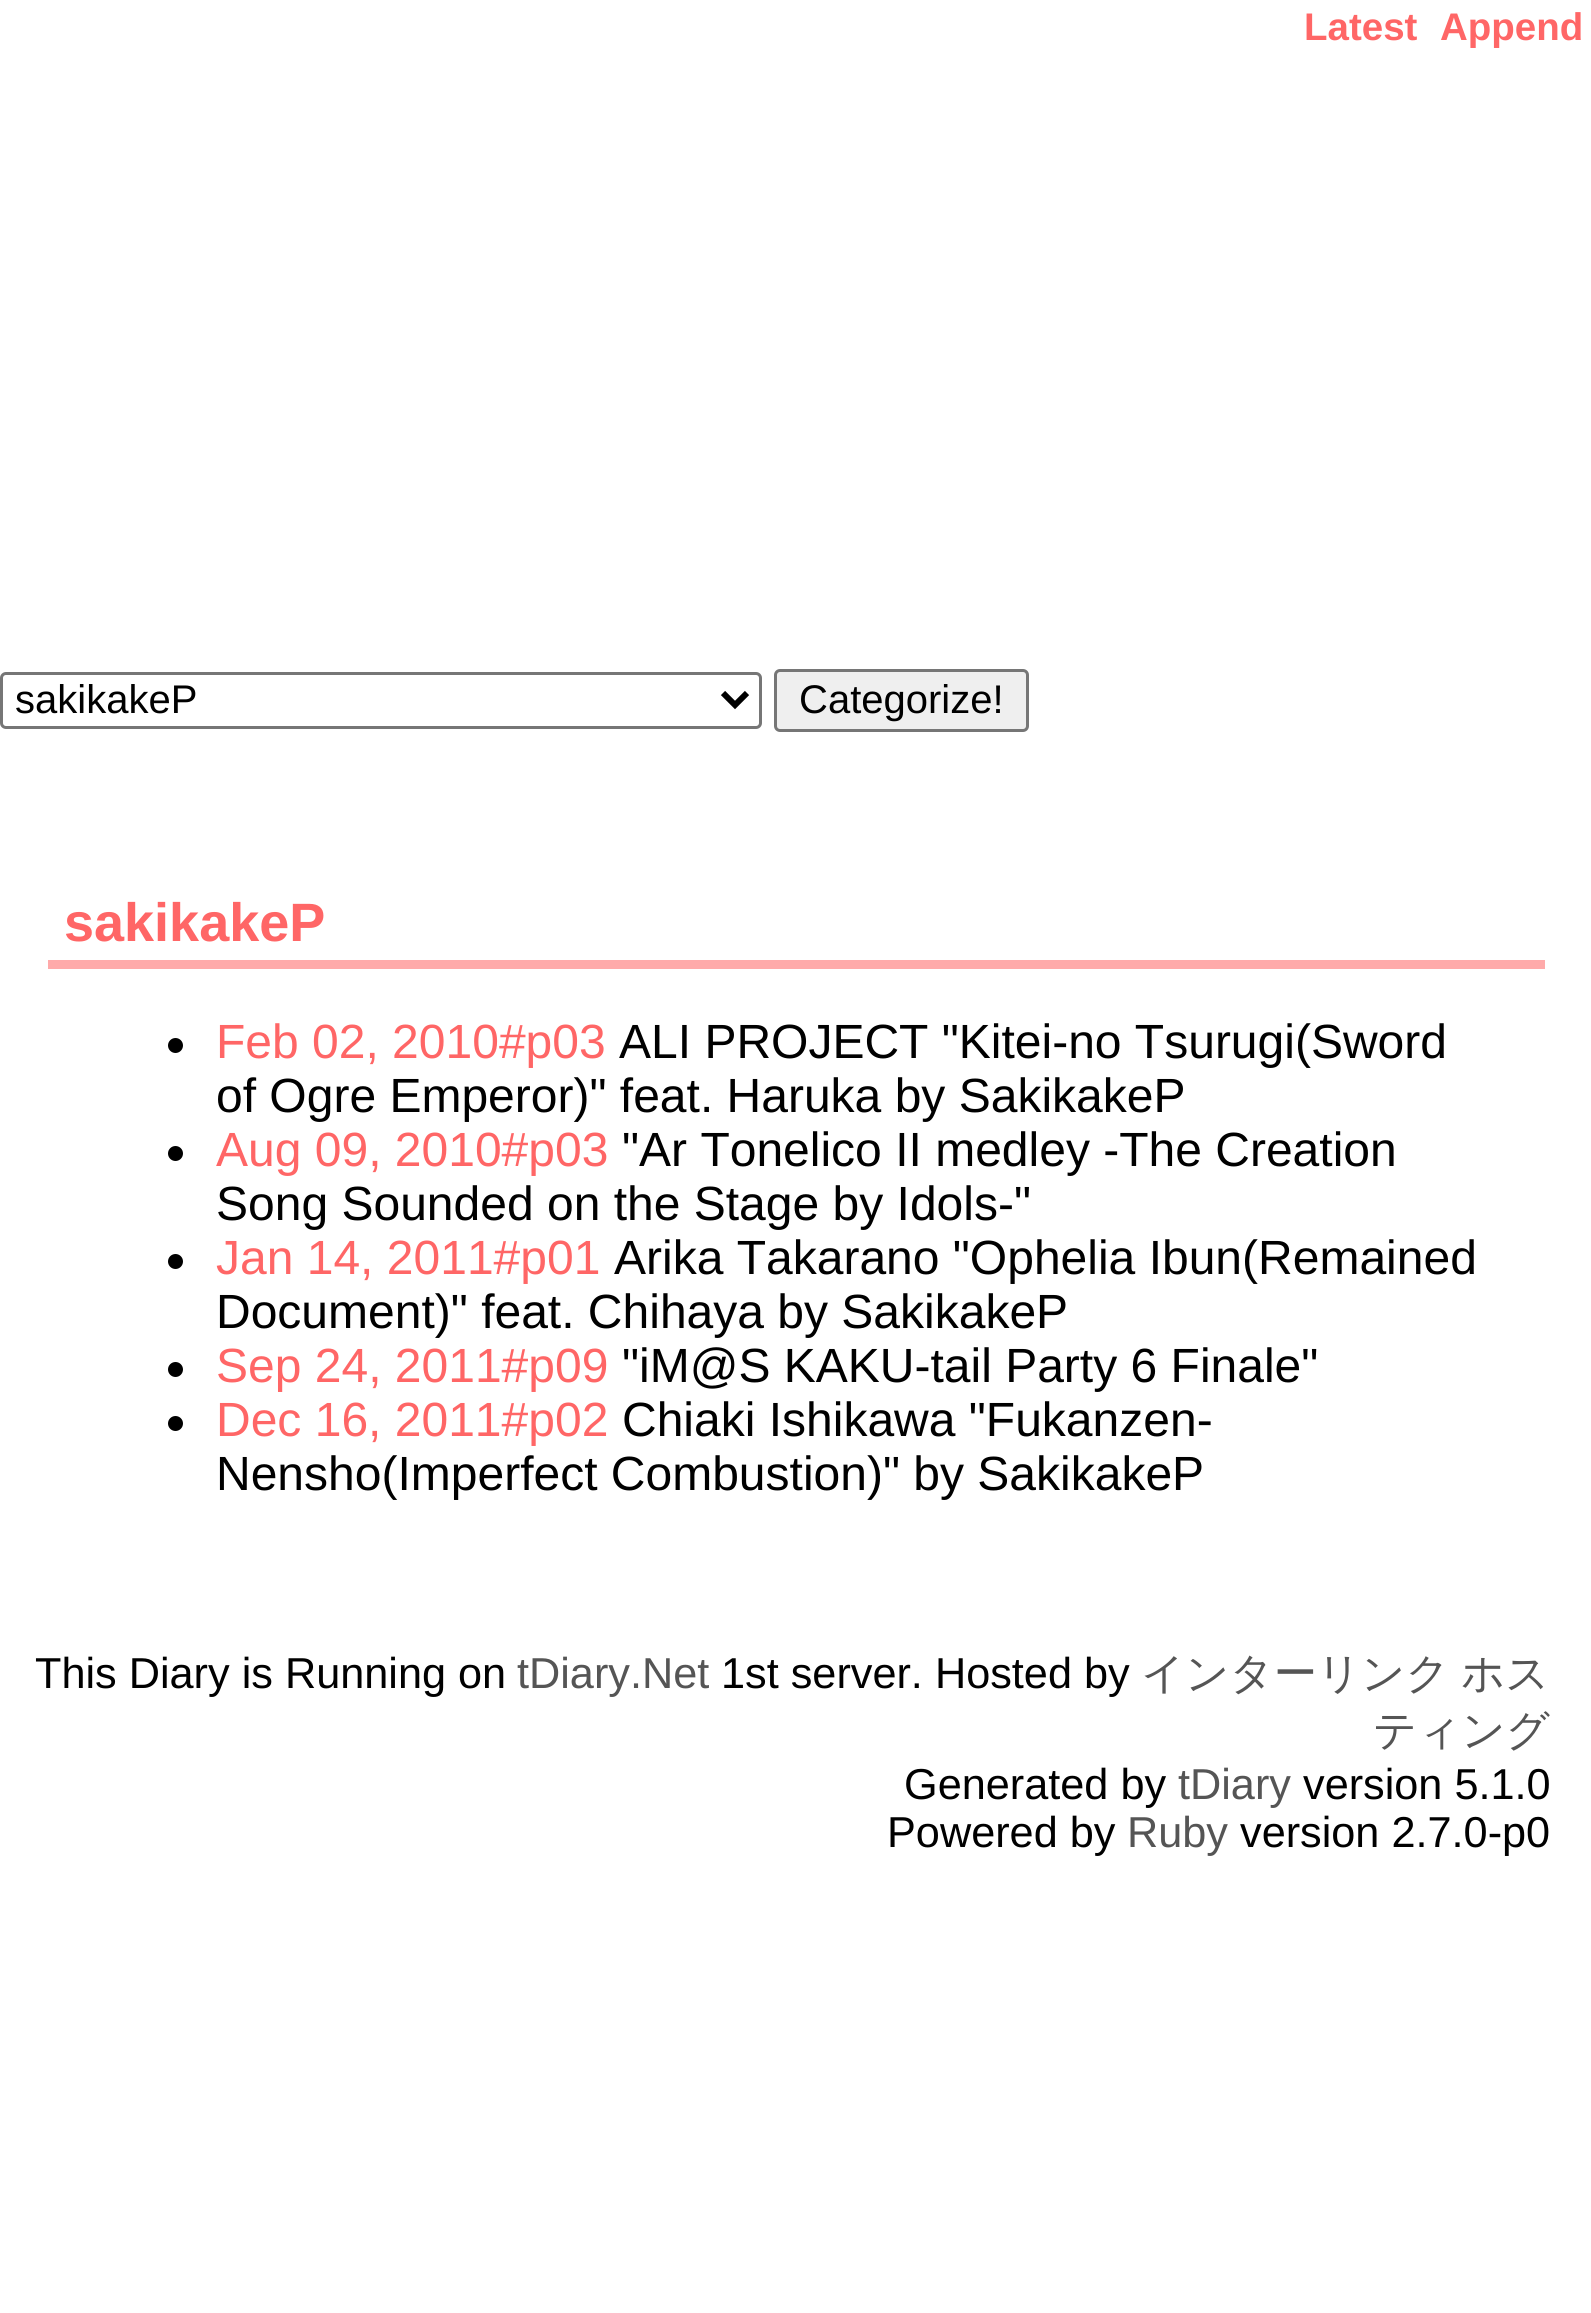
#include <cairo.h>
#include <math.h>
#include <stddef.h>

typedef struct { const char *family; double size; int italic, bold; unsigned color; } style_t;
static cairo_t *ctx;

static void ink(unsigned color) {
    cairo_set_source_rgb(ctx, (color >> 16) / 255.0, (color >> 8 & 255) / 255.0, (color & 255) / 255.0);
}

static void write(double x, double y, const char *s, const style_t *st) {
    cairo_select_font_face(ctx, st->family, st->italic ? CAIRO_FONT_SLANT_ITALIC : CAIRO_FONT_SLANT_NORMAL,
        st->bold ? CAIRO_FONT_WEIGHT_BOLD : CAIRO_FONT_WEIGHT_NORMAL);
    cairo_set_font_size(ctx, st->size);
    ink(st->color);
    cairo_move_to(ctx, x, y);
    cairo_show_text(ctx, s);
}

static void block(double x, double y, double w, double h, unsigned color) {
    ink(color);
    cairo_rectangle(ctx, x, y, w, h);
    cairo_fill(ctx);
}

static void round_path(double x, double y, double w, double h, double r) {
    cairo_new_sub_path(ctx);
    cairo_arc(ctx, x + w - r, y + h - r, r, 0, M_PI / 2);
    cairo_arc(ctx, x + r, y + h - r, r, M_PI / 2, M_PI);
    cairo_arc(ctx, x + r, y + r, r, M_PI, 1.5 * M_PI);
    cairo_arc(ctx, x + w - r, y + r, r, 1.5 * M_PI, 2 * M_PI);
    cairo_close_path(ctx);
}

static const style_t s1 = {"Liberation Sans", 38.5, 0, 1, 0xff6666};
static const style_t s2 = {"Liberation Sans", 40, 0, 0, 0x000000};
static const style_t s3 = {"Liberation Sans", 54, 0, 1, 0xff6666};
static const style_t s4 = {"Liberation Sans", 48, 0, 0, 0xff6666};
static const style_t s5 = {"Liberation Sans", 48, 0, 0, 0x000000};
static const style_t s6 = {"Liberation Sans", 43.25, 0, 0, 0x000000};
static const style_t s7 = {"Liberation Sans", 43.25, 0, 0, 0x555555};
static const style_t s8 = {"WenQuanYi Zen Hei Medium", 43.25, 0, 0, 0x555555};

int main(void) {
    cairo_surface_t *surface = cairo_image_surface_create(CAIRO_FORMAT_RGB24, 1591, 2313);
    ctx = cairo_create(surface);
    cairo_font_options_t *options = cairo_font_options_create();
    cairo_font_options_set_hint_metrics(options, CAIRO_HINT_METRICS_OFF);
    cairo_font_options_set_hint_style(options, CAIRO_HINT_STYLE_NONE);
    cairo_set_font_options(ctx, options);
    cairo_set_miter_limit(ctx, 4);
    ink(0xffffff);
    cairo_paint(ctx);
    write(1304, 40, "Latest", &s1);
    write(1440, 40, "Append", &s1);
    round_path(1.5, 673.5, 759, 54, 4.5);
    ink(0x767676);
    cairo_set_line_width(ctx, 3);
    cairo_stroke(ctx);
    cairo_new_path(ctx);
    cairo_move_to(ctx, 723, 693);
    cairo_line_to(ctx, 735, 705);
    cairo_line_to(ctx, 747, 693);
    ink(0x000000);
    cairo_set_line_width(ctx, 6);
    cairo_stroke(ctx);
    write(15, 713, "sakikakeP", &s2);
    ink(0xefefef);
    round_path(775.5, 670.5, 252, 60, 4.5);
    cairo_fill_preserve(ctx);
    ink(0x767676);
    cairo_set_line_width(ctx, 3);
    cairo_stroke(ctx);
    write(799, 713, "Categorize!", &s2);
    block(48, 960, 1497, 9, 0xffaaaa);
    write(64, 941, "sakikakeP", &s3);
    ink(0x000000);
    cairo_new_path(ctx);
    cairo_arc(ctx, 175.5, 1045.5, 7.5, 0, 2 * M_PI);
    cairo_fill(ctx);
    write(216, 1058, "Feb 02, 2010#p03", &s4);
    write(619, 1058, "ALI PROJECT \"Kitei-no Tsurugi(Sword", &s5);
    write(216, 1112, "of Ogre Emperor)\" feat. Haruka by SakikakeP", &s5);
    cairo_new_path(ctx);
    cairo_arc(ctx, 175.5, 1153.5, 7.5, 0, 2 * M_PI);
    cairo_fill(ctx);
    write(216, 1166, "Aug 09, 2010#p03", &s4);
    write(622, 1166, "\"Ar Tonelico II medley -The Creation", &s5);
    write(216, 1220, "Song Sounded on the Stage by Idols-\"", &s5);
    cairo_new_path(ctx);
    cairo_arc(ctx, 175.5, 1261.5, 7.5, 0, 2 * M_PI);
    cairo_fill(ctx);
    write(216, 1274, "Jan 14, 2011#p01", &s4);
    write(614, 1274, "Arika Takarano \"Ophelia Ibun(Remained", &s5);
    write(216, 1328, "Document)\" feat. Chihaya by SakikakeP", &s5);
    cairo_new_path(ctx);
    cairo_arc(ctx, 175.5, 1369.5, 7.5, 0, 2 * M_PI);
    cairo_fill(ctx);
    write(216, 1382, "Sep 24, 2011#p09", &s4);
    write(622, 1382, "\"iM@S KAKU-tail Party 6 Finale\"", &s5);
    cairo_new_path(ctx);
    cairo_arc(ctx, 175.5, 1423.5, 7.5, 0, 2 * M_PI);
    cairo_fill(ctx);
    write(216, 1436, "Dec 16, 2011#p02", &s4);
    write(622, 1436, "Chiaki Ishikawa \"Fukanzen-", &s5);
    write(216, 1490, "Nensho(Imperfect Combustion)\" by SakikakeP", &s5);
    write(35, 1688, "This Diary is Running on", &s6);
    write(517, 1688, "tDiary.Net", &s7);
    write(721, 1688, "1st server. Hosted by", &s6);
    write(1141, 1688, "インターリンク", &s8);
    write(1461, 1688, "ホス", &s8);
    write(1373, 1745, "ティング", &s8);
    write(904, 1799, "Generated by", &s6);
    write(1178, 1799, "tDiary", &s7);
    write(1303, 1799, "version 5.1.0", &s6);
    write(887, 1847, "Powered by", &s6);
    write(1127, 1847, "Ruby", &s7);
    write(1240, 1847, "version 2.7.0-p0", &s6);
    cairo_surface_write_to_png(surface, "screenshot.png");
    cairo_font_options_destroy(options);
    cairo_destroy(ctx);
    cairo_surface_destroy(surface);
    return 0;
}
